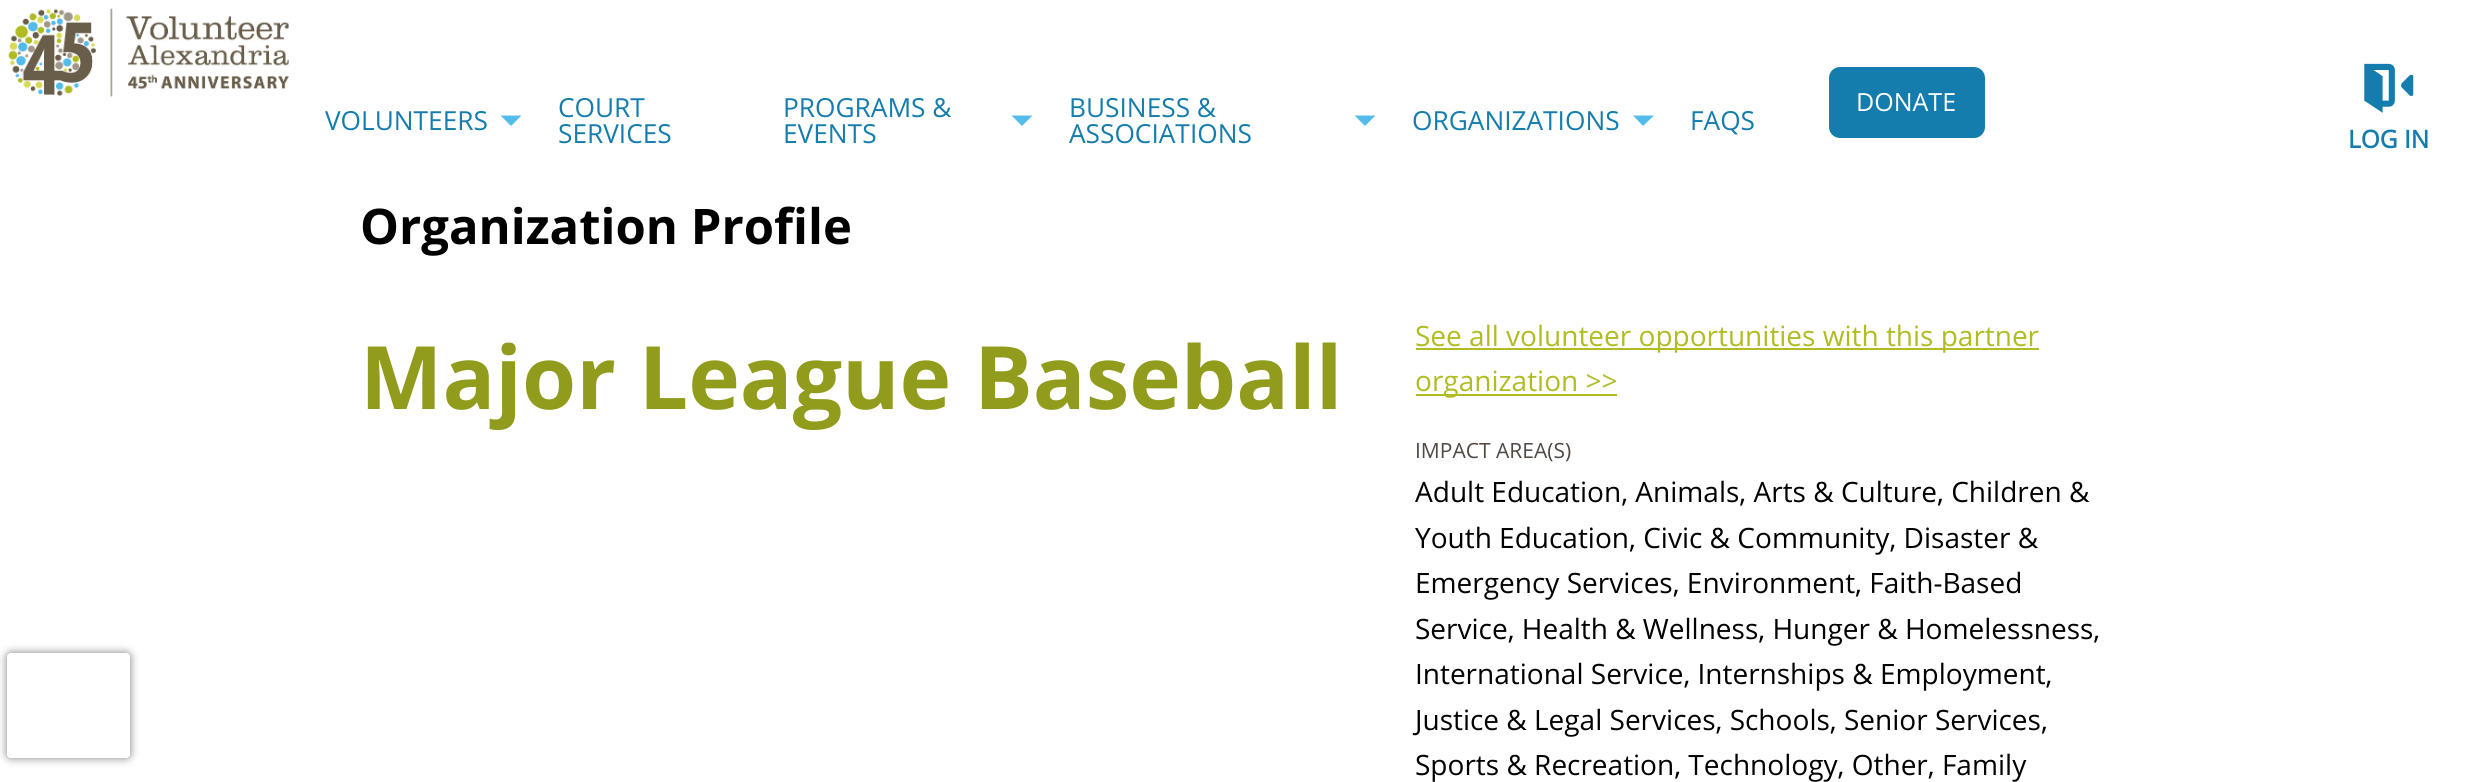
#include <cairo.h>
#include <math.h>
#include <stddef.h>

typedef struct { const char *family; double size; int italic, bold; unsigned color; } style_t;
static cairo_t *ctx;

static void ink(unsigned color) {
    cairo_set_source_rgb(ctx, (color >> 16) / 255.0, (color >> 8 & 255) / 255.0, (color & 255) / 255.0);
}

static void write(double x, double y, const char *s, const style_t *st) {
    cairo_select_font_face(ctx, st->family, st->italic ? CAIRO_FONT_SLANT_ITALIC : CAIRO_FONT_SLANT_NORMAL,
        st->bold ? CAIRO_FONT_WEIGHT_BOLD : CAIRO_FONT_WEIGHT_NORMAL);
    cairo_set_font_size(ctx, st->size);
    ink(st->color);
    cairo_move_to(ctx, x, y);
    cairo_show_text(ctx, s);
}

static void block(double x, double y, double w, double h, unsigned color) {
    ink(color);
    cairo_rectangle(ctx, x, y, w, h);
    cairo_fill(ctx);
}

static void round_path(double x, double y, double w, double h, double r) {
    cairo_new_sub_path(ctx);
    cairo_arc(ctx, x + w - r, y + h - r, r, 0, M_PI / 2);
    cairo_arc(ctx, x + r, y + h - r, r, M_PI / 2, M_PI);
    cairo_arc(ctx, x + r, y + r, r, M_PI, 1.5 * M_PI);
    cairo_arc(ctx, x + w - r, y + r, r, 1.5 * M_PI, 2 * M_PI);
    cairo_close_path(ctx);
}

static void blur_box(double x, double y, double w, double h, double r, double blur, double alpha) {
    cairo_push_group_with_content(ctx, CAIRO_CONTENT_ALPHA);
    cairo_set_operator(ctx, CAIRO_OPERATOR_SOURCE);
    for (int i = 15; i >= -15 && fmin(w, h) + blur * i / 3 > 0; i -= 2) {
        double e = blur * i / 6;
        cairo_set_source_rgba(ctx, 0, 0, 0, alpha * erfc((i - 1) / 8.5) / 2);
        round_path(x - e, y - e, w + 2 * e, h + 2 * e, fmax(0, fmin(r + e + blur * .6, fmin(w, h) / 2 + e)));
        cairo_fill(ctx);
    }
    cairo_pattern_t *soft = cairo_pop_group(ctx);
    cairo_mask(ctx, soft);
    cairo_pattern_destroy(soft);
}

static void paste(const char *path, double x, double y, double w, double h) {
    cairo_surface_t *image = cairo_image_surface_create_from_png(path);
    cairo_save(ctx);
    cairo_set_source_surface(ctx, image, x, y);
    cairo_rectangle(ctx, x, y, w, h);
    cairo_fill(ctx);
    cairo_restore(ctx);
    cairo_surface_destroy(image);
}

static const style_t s1 = {"Open Sans", 26.25, 0, 0, 0x147dad};
static const style_t s2 = {"Open Sans", 25, 0, 0, 0xffffff};
static const style_t s3 = {"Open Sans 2", 24.5, 0, 1, 0x147dad};
static const style_t s4 = {"Open Sans", 49, 0, 1, 0x000000};
static const style_t s5 = {"Open Sans", 87.5, 0, 1, 0x919b1c};
static const style_t s6 = {"Open Sans", 28, 0, 0, 0xb0bc22};
static const style_t s7 = {"Open Sans", 21, 0, 0, 0x504944};
static const style_t s8 = {"Open Sans", 28, 0, 0, 0x000000};

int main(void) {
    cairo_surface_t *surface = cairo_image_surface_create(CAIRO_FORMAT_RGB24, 2475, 782);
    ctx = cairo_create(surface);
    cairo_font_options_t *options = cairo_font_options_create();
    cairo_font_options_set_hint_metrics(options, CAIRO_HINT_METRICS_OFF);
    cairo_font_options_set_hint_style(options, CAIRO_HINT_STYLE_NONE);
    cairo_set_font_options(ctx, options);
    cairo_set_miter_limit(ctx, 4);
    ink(0xffffff);
    cairo_paint(ctx);
    cairo_save(ctx);
    cairo_set_fill_rule(ctx, CAIRO_FILL_RULE_EVEN_ODD);
    cairo_new_path(ctx);
    cairo_move_to(ctx, 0, 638);
    cairo_line_to(ctx, 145, 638);
    cairo_line_to(ctx, 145, 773);
    cairo_line_to(ctx, 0, 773);
    cairo_close_path(ctx);
    cairo_move_to(ctx, 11, 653);
    cairo_line_to(ctx, 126, 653);
    cairo_curve_to(ctx, 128, 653, 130, 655, 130, 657);
    cairo_line_to(ctx, 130, 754);
    cairo_curve_to(ctx, 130, 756, 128, 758, 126, 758);
    cairo_line_to(ctx, 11, 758);
    cairo_curve_to(ctx, 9, 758, 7, 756, 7, 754);
    cairo_line_to(ctx, 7, 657);
    cairo_curve_to(ctx, 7, 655, 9, 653, 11, 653);
    cairo_close_path(ctx);
    cairo_clip(ctx);
    ink(0x808080);
    blur_box(7, 653, 123, 105, 4, 4.5, 1);
    cairo_restore(ctx);
    paste("pic1.png", 8, 8, 281, 89);
    write(325, 130, "VOLUNTEERS", &s1);
    ink(0x54bceb);
    cairo_new_path(ctx);
    cairo_move_to(ctx, 500.5, 115.5);
    cairo_line_to(ctx, 521.5, 115.5);
    cairo_line_to(ctx, 511, 126);
    cairo_close_path(ctx);
    cairo_fill(ctx);
    write(558, 117, "COURT", &s1);
    write(558, 143, "SERVICES", &s1);
    write(783, 117, "PROGRAMS &", &s1);
    ink(0x54bceb);
    cairo_new_path(ctx);
    cairo_move_to(ctx, 1011.5, 115.5);
    cairo_line_to(ctx, 1032.5, 115.5);
    cairo_line_to(ctx, 1022, 126);
    cairo_close_path(ctx);
    cairo_fill(ctx);
    write(783, 143, "EVENTS", &s1);
    write(1069, 117, "BUSINESS &", &s1);
    ink(0x54bceb);
    cairo_new_path(ctx);
    cairo_move_to(ctx, 1354.5, 115.5);
    cairo_line_to(ctx, 1375.5, 115.5);
    cairo_line_to(ctx, 1365, 126);
    cairo_close_path(ctx);
    cairo_fill(ctx);
    write(1069, 143, "ASSOCIATIONS", &s1);
    write(1412, 130, "ORGANIZATIONS", &s1);
    ink(0x54bceb);
    cairo_new_path(ctx);
    cairo_move_to(ctx, 1633, 115.5);
    cairo_line_to(ctx, 1654, 115.5);
    cairo_line_to(ctx, 1643, 126);
    cairo_close_path(ctx);
    cairo_fill(ctx);
    write(1690, 130, "FAQS", &s1);
    round_path(1830, 68, 154, 69, 10);
    cairo_fill_preserve(ctx);
    cairo_stroke(ctx);
    write(1856, 111, "DONATE", &s2);
    paste("pic2.png", 2364, 63, 50, 50);
    write(2348, 148, "LOG IN", &s3);
    write(360, 244, "Organization Profile", &s4);
    write(360, 409, "Major League Baseball", &s5);
    block(1416, 348, 623, 2, 0xb0bc22);
    write(1415, 346, "See all volunteer opportunities with this partner", &s6);
    block(1416, 394, 201, 2, 0xb0bc22);
    write(1415, 391, "organization >>", &s6);
    write(1415, 458, "IMPACT AREA(S)", &s7);
    write(1415, 502, "Adult Education, Animals, Arts & Culture, Children &", &s8);
    write(1415, 548, "Youth Education, Civic & Community, Disaster &", &s8);
    write(1415, 593, "Emergency Services, Environment, Faith-Based", &s8);
    write(1415, 639, "Service, Health & Wellness, Hunger & Homelessness,", &s8);
    write(1415, 684, "International Service, Internships & Employment,", &s8);
    write(1415, 730, "Justice & Legal Services, Schools, Senior Services,", &s8);
    write(1415, 775, "Sports & Recreation, Technology, Other, Family", &s8);
    cairo_surface_write_to_png(surface, "screenshot.png");
    cairo_font_options_destroy(options);
    cairo_destroy(ctx);
    cairo_surface_destroy(surface);
    return 0;
}
